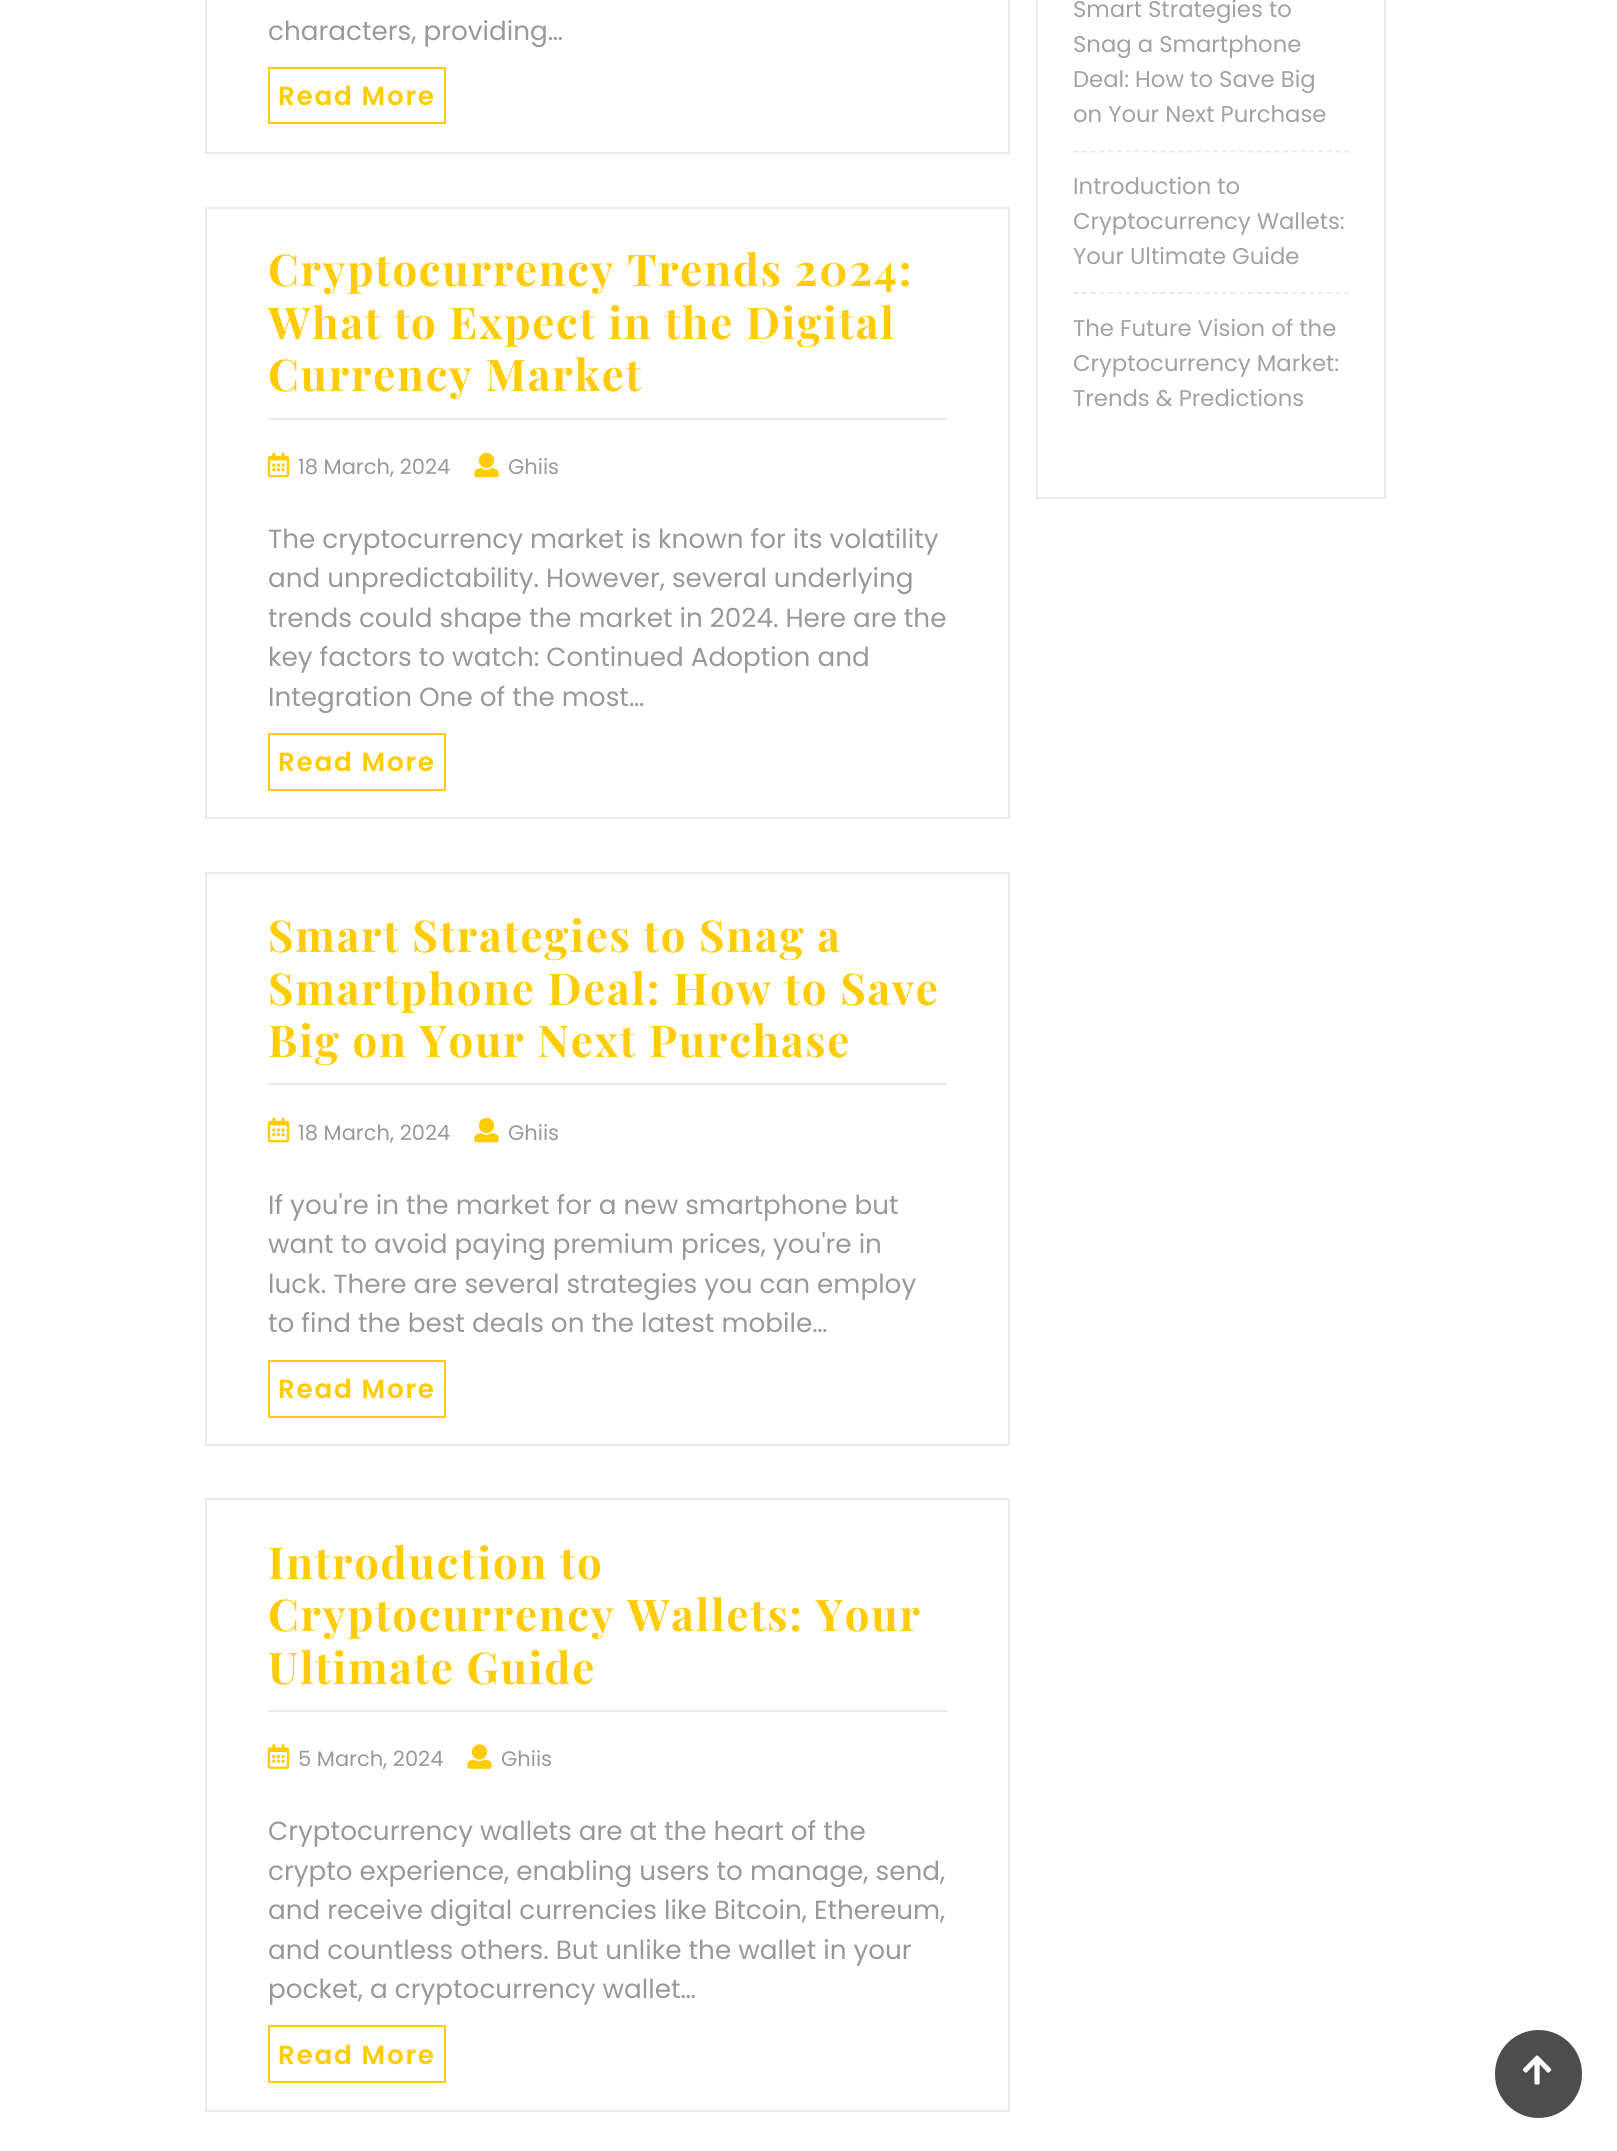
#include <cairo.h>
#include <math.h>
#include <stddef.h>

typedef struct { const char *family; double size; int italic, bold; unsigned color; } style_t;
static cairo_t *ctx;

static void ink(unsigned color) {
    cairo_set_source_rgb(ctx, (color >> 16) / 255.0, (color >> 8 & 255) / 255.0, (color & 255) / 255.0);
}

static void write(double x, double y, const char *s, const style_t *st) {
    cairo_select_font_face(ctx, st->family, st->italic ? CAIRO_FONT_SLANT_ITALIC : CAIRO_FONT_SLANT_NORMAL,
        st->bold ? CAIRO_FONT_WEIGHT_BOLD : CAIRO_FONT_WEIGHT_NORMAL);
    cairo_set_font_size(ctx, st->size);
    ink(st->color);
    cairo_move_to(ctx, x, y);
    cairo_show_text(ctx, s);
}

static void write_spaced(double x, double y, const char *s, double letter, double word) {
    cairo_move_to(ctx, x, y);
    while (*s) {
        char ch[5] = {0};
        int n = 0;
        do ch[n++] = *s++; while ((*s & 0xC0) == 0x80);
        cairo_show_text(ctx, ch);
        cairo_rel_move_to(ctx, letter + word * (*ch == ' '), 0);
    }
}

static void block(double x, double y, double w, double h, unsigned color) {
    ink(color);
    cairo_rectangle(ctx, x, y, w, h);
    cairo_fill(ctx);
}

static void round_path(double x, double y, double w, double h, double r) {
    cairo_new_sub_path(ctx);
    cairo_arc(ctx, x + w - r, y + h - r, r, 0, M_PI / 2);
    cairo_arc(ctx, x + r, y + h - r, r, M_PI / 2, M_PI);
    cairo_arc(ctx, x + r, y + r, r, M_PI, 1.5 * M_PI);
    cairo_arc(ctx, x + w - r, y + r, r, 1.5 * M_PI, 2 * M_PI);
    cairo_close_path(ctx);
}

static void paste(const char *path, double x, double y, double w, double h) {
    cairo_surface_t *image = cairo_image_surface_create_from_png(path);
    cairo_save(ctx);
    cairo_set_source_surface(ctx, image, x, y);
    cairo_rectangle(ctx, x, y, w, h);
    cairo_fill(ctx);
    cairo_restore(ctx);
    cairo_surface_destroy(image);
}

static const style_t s1 = {"Poppins", 26.25, 0, 0, 0x999999};
static const style_t s2 = {"Poppins", 21, 0, 0, 0x999999};
static const style_t s3 = {"Poppins", 22.75, 0, 0, 0xa2a2a2};

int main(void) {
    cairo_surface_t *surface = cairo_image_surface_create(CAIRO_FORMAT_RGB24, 1617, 2151);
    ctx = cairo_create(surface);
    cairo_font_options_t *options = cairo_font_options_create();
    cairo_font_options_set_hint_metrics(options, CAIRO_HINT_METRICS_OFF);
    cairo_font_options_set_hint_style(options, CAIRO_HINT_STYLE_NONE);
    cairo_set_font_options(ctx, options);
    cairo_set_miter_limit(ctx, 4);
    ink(0xffffff);
    cairo_paint(ctx);
    cairo_rectangle(ctx, 206, -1, 803, 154);
    ink(0xebebeb);
    cairo_stroke(ctx);
    write(268, 40, "characters, providing…", &s1);
    cairo_rectangle(ctx, 269, 68, 176, 55);
    ink(0xffcc05);
    cairo_stroke(ctx);
    cairo_select_font_face(ctx, "Poppins SemiBold", CAIRO_FONT_SLANT_NORMAL, CAIRO_FONT_WEIGHT_NORMAL);
    write_spaced(278, 105, "Read More", 1.75, 0);
    cairo_rectangle(ctx, 206, 208, 803, 610);
    ink(0xebebeb);
    cairo_stroke(ctx);
    block(268, 418, 679, 2, 0xebebeb);
    cairo_select_font_face(ctx, "Playfair Display", CAIRO_FONT_SLANT_NORMAL, CAIRO_FONT_WEIGHT_BOLD);
    cairo_set_font_size(ctx, 43.75);
    ink(0xffcc05);
    write_spaced(268, 286, "Cryptocurrency Trends 2024:", 1.75, 0);
    write_spaced(268, 339, "What to Expect in the Digital", 1.75, 0);
    write_spaced(268, 391, "Currency Market", 1.75, 0);
    paste("pic1.png", 267, 452, 23, 26);
    write(298, 474, "18 March, 2024", &s2);
    paste("pic2.png", 474, 452, 25, 26);
    write(508, 474, "Ghiis", &s2);
    write(268, 548, "The cryptocurrency market is known for its volatility", &s1);
    write(268, 587, "and unpredictability. However, several underlying", &s1);
    write(268, 627, "trends could shape the market in 2024. Here are the", &s1);
    write(268, 666, "key factors to watch: Continued Adoption and", &s1);
    write(268, 706, "Integration One of the most…", &s1);
    cairo_rectangle(ctx, 269, 734, 176, 56);
    ink(0xffcc05);
    cairo_stroke(ctx);
    cairo_select_font_face(ctx, "Poppins SemiBold", CAIRO_FONT_SLANT_NORMAL, CAIRO_FONT_WEIGHT_NORMAL);
    write_spaced(278, 771, "Read More", 1.75, 0);
    cairo_rectangle(ctx, 206, 873, 803, 572);
    ink(0xebebeb);
    cairo_stroke(ctx);
    block(268, 1083, 679, 2, 0xebebeb);
    cairo_select_font_face(ctx, "Playfair Display", CAIRO_FONT_SLANT_NORMAL, CAIRO_FONT_WEIGHT_BOLD);
    cairo_set_font_size(ctx, 43.75);
    ink(0xffcc05);
    write_spaced(268, 952, "Smart Strategies to Snag a", 1.75, 0);
    write_spaced(268, 1005, "Smartphone Deal: How to Save", 1.75, 0);
    write_spaced(268, 1057, "Big on Your Next Purchase", 1.75, 0);
    paste("pic1.png", 267, 1117, 23, 26);
    write(298, 1140, "18 March, 2024", &s2);
    paste("pic2.png", 474, 1117, 25, 26);
    write(508, 1140, "Ghiis", &s2);
    write(268, 1214, "If you're in the market for a new smartphone but", &s1);
    write(268, 1253, "want to avoid paying premium prices, you're in", &s1);
    write(268, 1293, "luck. There are several strategies you can employ", &s1);
    write(268, 1332, "to find the best deals on the latest mobile…", &s1);
    cairo_rectangle(ctx, 269, 1361, 176, 56);
    ink(0xffcc05);
    cairo_stroke(ctx);
    cairo_select_font_face(ctx, "Poppins SemiBold", CAIRO_FONT_SLANT_NORMAL, CAIRO_FONT_WEIGHT_NORMAL);
    write_spaced(278, 1398, "Read More", 1.75, 0);
    cairo_rectangle(ctx, 206, 1499, 803, 612);
    ink(0xebebeb);
    cairo_stroke(ctx);
    block(268, 1710, 679, 2, 0xebebeb);
    cairo_select_font_face(ctx, "Playfair Display", CAIRO_FONT_SLANT_NORMAL, CAIRO_FONT_WEIGHT_BOLD);
    cairo_set_font_size(ctx, 43.75);
    ink(0xffcc05);
    write_spaced(268, 1579, "Introduction to", 1.75, 0);
    write_spaced(268, 1631, "Cryptocurrency Wallets: Your", 1.75, 0);
    write_spaced(268, 1684, "Ultimate Guide", 1.75, 0);
    paste("pic3.png", 267, 1744, 23, 25);
    write(298, 1766, "5 March, 2024", &s2);
    paste("pic4.png", 467, 1744, 25, 25);
    write(501, 1766, "Ghiis", &s2);
    write(268, 1840, "Cryptocurrency wallets are at the heart of the", &s1);
    write(268, 1880, "crypto experience, enabling users to manage, send,", &s1);
    write(268, 1919, "and receive digital currencies like Bitcoin, Ethereum,", &s1);
    write(268, 1959, "and countless others. But unlike the wallet in your", &s1);
    write(268, 1998, "pocket, a cryptocurrency wallet…", &s1);
    cairo_rectangle(ctx, 269, 2026, 176, 56);
    ink(0xffcc05);
    cairo_stroke(ctx);
    cairo_select_font_face(ctx, "Poppins SemiBold", CAIRO_FONT_SLANT_NORMAL, CAIRO_FONT_WEIGHT_NORMAL);
    write_spaced(278, 2064, "Read More", 1.75, 0);
    cairo_rectangle(ctx, 1037, -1, 348, 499);
    ink(0xebebeb);
    cairo_stroke(ctx);
    cairo_new_path(ctx);
    cairo_move_to(ctx, 1073, 151.5);
    cairo_line_to(ctx, 1349, 151.5);
    cairo_set_line_width(ctx, 1.8);
    cairo_set_dash(ctx, (double[]){5.25, 3.5}, 2, 0);
    cairo_stroke(ctx);
    write(1073, 17, "Smart Strategies to", &s3);
    write(1073, 52, "Snag a Smartphone", &s3);
    write(1073, 87, "Deal: How to Save Big", &s3);
    write(1073, 122, "on Your Next Purchase", &s3);
    cairo_new_path(ctx);
    cairo_move_to(ctx, 1073, 293);
    cairo_line_to(ctx, 1349, 293);
    ink(0xebebeb);
    cairo_stroke(ctx);
    write(1073, 194, "Introduction to", &s3);
    write(1073, 229, "Cryptocurrency Wallets:", &s3);
    write(1073, 264, "Your Ultimate Guide", &s3);
    write(1073, 336, "The Future Vision of the", &s3);
    write(1073, 371, "Cryptocurrency Market:", &s3);
    write(1073, 406, "Trends & Predictions", &s3);
    ink(0x4d4d4d);
    round_path(1495, 2030, 87, 88, 43.5);
    cairo_fill(ctx);
    paste("pic5.png", 1522, 2055, 30, 30);
    cairo_surface_write_to_png(surface, "screenshot.png");
    cairo_font_options_destroy(options);
    cairo_destroy(ctx);
    cairo_surface_destroy(surface);
    return 0;
}
